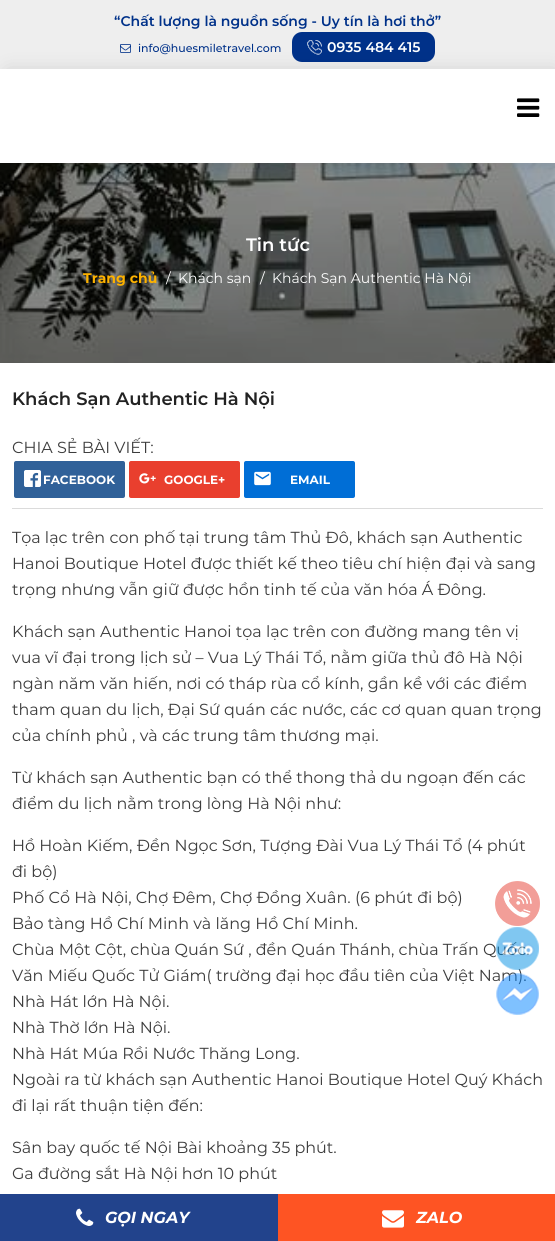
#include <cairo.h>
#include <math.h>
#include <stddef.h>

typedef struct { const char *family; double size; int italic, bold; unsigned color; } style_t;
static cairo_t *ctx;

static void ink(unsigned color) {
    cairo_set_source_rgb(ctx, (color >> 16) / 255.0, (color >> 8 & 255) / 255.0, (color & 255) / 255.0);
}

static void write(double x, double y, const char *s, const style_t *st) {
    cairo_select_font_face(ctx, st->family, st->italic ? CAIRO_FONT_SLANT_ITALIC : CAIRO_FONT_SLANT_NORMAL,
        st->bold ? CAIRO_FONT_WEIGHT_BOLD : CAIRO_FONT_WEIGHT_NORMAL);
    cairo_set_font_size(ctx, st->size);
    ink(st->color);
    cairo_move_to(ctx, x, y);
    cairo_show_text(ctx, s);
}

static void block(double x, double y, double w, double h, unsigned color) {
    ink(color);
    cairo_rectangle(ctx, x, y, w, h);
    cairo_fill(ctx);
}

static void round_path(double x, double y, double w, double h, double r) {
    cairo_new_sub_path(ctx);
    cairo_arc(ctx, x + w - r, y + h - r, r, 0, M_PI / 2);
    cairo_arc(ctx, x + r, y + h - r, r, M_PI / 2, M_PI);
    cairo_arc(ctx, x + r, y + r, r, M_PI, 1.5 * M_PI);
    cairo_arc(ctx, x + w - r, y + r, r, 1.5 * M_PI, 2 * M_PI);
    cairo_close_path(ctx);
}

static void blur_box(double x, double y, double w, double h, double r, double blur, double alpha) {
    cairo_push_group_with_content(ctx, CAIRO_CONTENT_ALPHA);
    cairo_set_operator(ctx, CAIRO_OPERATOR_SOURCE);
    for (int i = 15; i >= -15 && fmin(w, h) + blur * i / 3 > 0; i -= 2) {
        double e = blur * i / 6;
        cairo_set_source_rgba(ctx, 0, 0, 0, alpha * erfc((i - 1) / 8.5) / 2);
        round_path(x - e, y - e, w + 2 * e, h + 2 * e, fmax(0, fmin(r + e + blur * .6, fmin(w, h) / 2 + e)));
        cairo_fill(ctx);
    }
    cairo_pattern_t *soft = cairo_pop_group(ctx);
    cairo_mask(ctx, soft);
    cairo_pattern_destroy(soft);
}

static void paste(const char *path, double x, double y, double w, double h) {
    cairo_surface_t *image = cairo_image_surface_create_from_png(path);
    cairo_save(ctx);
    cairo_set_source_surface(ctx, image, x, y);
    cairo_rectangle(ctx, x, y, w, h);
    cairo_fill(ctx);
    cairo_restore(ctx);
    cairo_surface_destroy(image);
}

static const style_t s1 = {"Montserrat SemiBold", 14, 0, 0, 0x003189};
static const style_t s2 = {"Montserrat Medium", 11, 0, 0, 0x003189};
static const style_t s3 = {"Montserrat SemiBold", 14, 0, 0, 0xffffff};
static const style_t s4 = {"Montserrat SemiBold", 18, 0, 0, 0xffffff};
static const style_t s5 = {"Montserrat", 14, 0, 1, 0xfdb200};
static const style_t s6 = {"Montserrat", 14, 0, 0, 0xffffff};
static const style_t s7 = {"Montserrat SemiBold", 18, 0, 0, 0x222222};
static const style_t s8 = {"Montserrat", 16, 0, 0, 0x3c3c3c};
static const style_t s9 = {"Montserrat", 12, 0, 1, 0xffffff};
static const style_t s10 = {"Montserrat", 16, 1, 1, 0xffffff};

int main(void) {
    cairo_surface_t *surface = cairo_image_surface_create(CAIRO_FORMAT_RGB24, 555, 1241);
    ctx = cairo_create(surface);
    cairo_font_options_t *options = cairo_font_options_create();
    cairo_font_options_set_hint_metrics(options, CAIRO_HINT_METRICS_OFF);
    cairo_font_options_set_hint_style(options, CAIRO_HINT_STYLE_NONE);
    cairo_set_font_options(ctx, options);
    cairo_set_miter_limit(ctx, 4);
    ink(0xffffff);
    cairo_paint(ctx);
    block(0, 0, 555, 69, 0xeeeeee);
    write(114, 26, "“Chất lượng là nguồn sống - Uy tín là hơi thở”", &s1);
    paste("pic1.png", 120, 44, 11, 9);
    write(138, 52, "info@huesmiletravel.com", &s2);
    round_path(292, 32, 143, 30, 10);
    cairo_fill(ctx);
    paste("pic2.png", 307, 40, 15, 15);
    write(327, 52, "0935 484 415", &s3);
    paste("pic4.png", 0, 163, 555, 200);
    cairo_save(ctx);
    cairo_set_fill_rule(ctx, CAIRO_FILL_RULE_EVEN_ODD);
    cairo_new_path(ctx);
    cairo_move_to(ctx, 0, 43);
    cairo_line_to(ctx, 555, 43);
    cairo_line_to(ctx, 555, 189);
    cairo_line_to(ctx, 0, 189);
    cairo_close_path(ctx);
    cairo_move_to(ctx, 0, 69);
    cairo_line_to(ctx, 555, 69);
    cairo_line_to(ctx, 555, 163);
    cairo_line_to(ctx, 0, 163);
    cairo_close_path(ctx);
    cairo_clip(ctx);
    ink(0x000000);
    blur_box(9, 74, 545, 84, 0, 10, 0.2);
    cairo_restore(ctx);
    paste("pic3.png", 517, 98, 23, 19);
    write(246, 251, "Tin tức", &s4);
    write(83, 283, "Trang chủ", &s5);
    write(166, 283, "/", &s6);
    write(178, 283, "Khách sạn", &s6);
    write(260, 283, "/", &s6);
    write(272, 283, "Khách Sạn Authentic Hà Nội", &s6);
    write(12, 405, "Khách Sạn Authentic Hà Nội", &s7);
    block(12, 508, 531, 1, 0xdbdbdb);
    write(12, 453, "CHIA SẺ BÀI VIẾT:", &s8);
    ink(0x306199);
    round_path(14, 461, 111, 37, 2);
    cairo_fill(ctx);
    paste("pic5.png", 24, 470, 17, 17);
    write(43, 484, "FACEBOOK", &s9);
    ink(0xe93f2e);
    round_path(129, 461, 111, 37, 2);
    cairo_fill(ctx);
    paste("pic6.png", 139, 473, 17, 11);
    write(164, 484, "GOOGLE+", &s9);
    ink(0x006ed6);
    round_path(244, 461, 111, 37, 2);
    cairo_fill(ctx);
    paste("pic7.png", 254, 471, 17, 15);
    write(290, 484, "EMAIL", &s9);
    write(12, 543, "Tọa lạc trên con phố tại trung tâm Thủ Đô, khách sạn Authentic", &s8);
    write(12, 569, "Hanoi Boutique Hotel được thiết kế theo tiêu chí hiện đại và sang", &s8);
    write(12, 595, "trọng nhưng vẫn giữ được hồn tinh tế của văn hóa Á Đông.", &s8);
    write(12, 637, "Khách sạn Authentic Hanoi tọa lạc trên con đường mang tên vị", &s8);
    write(12, 663, "vua vĩ đại trong lịch sử – Vua Lý Thái Tổ, nằm giữa thủ đô Hà Nội", &s8);
    write(12, 689, "ngàn năm văn hiến, nơi có tháp rùa cổ kính, gần kề với các điểm", &s8);
    write(12, 715, "tham quan du lịch, Đại Sứ quán các nước, các cơ quan quan trọng", &s8);
    write(12, 741, "của chính phủ , và các trung tâm thương mại.", &s8);
    write(12, 783, "Từ khách sạn Authentic bạn có thể thong thả du ngoạn đến các", &s8);
    write(12, 809, "điểm du lịch nằm trong lòng Hà Nội như:", &s8);
    write(12, 851, "Hồ Hoàn Kiếm, Đền Ngọc Sơn, Tượng Đài Vua Lý Thái Tổ (4 phút", &s8);
    write(12, 877, "đi bộ)", &s8);
    write(12, 903, "Phố Cổ Hà Nội, Chợ Đêm, Chợ Đồng Xuân. (6 phút đi bộ)", &s8);
    write(12, 929, "Bảo tàng Hồ Chí Minh và lăng Hồ Chí Minh.", &s8);
    write(12, 955, "Chùa Một Cột, chùa Quán Sứ , đền Quán Thánh, chùa Trấn Quốc.", &s8);
    write(12, 981, "Văn Miếu Quốc Tử Giám( trường đại học đầu tiên của Việt Nam).", &s8);
    write(12, 1007, "Nhà Hát lớn Hà Nội.", &s8);
    write(12, 1033, "Nhà Thờ lớn Hà Nội.", &s8);
    write(12, 1059, "Nhà Hát Múa Rồi Nước Thăng Long.", &s8);
    write(12, 1085, "Ngoài ra từ khách sạn Authentic Hanoi Boutique Hotel Quý Khách", &s8);
    write(12, 1111, "đi lại rất thuận tiện đến:", &s8);
    write(12, 1153, "Sân bay quốc tế Nội Bài khoảng 35 phút.", &s8);
    write(12, 1179, "Ga đường sắt Hà Nội hơn 10 phút", &s8);
    block(0, 1194, 278, 47, 0x22438c);
    paste("pic8.png", 76, 1208, 18, 18);
    write(105, 1223, "GỌI NGAY", &s10);
    block(278, 1194, 277, 47, 0xfe5423);
    paste("pic9.png", 382, 1210, 22, 18);
    write(416, 1223, "ZALO", &s10);
    paste("pic10.png", 495, 881, 45, 45);
    paste("pic11.png", 496, 927, 43, 43);
    paste("pic12.png", 496, 973, 43, 42);
    cairo_surface_write_to_png(surface, "screenshot.png");
    cairo_font_options_destroy(options);
    cairo_destroy(ctx);
    cairo_surface_destroy(surface);
    return 0;
}
